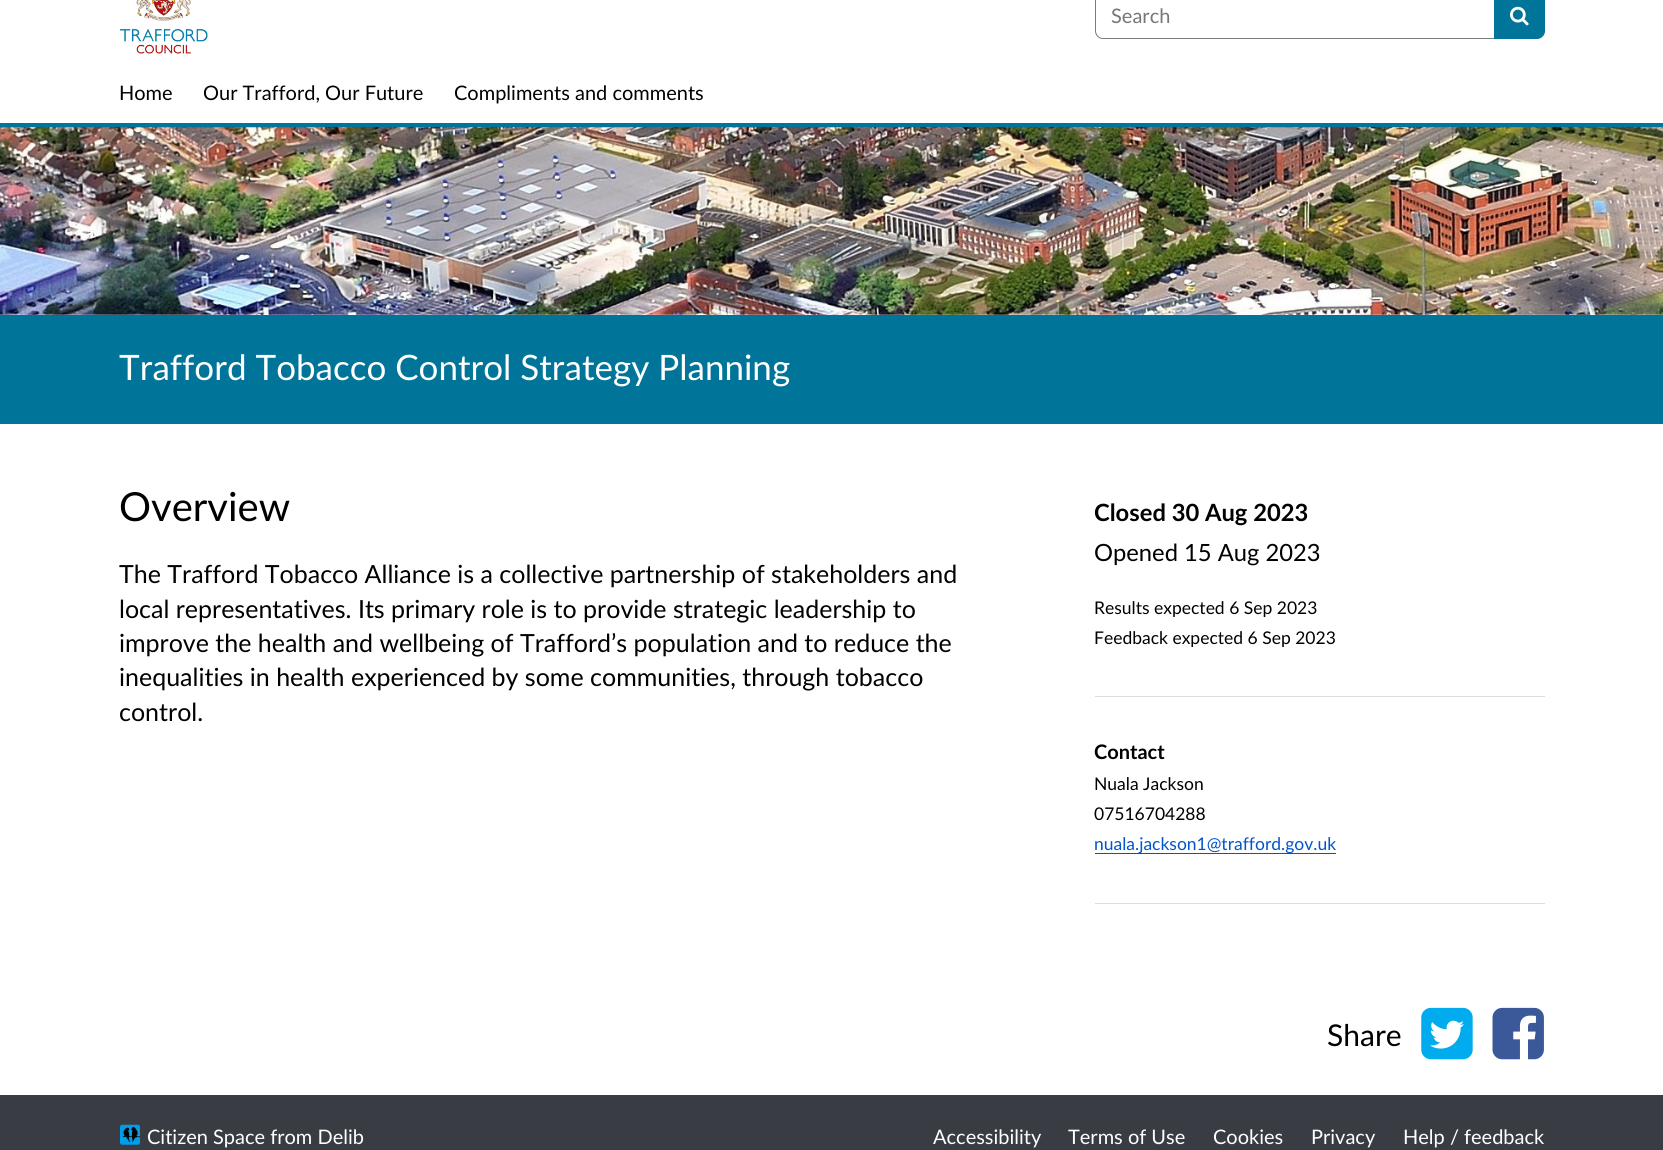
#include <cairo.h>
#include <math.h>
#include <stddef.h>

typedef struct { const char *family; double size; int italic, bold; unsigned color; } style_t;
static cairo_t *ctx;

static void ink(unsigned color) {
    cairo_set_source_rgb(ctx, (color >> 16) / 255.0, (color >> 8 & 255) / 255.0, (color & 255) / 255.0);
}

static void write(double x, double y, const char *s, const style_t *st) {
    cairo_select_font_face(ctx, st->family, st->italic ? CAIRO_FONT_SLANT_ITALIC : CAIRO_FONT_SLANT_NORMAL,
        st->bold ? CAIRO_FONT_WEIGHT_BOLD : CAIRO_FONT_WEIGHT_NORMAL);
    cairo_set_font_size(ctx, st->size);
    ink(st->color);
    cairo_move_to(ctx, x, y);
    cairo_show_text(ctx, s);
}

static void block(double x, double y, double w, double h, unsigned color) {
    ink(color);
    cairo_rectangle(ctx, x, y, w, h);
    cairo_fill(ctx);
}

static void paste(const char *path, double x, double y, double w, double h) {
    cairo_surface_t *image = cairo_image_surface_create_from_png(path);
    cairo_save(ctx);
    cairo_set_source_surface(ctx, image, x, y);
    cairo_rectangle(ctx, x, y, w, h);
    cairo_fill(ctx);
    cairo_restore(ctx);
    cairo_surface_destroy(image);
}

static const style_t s1 = {"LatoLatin", 20, 0, 0, 0x767676};
static const style_t s2 = {"LatoLatin", 20, 0, 0, 0x000000};
static const style_t s3 = {"LatoLatin", 35, 0, 0, 0xffffff};
static const style_t s4 = {"LatoLatin", 40, 0, 0, 0x000000};
static const style_t s5 = {"LatoLatin", 25, 0, 0, 0x000000};
static const style_t s6 = {"LatoLatin", 23.75, 0, 1, 0x000000};
static const style_t s7 = {"LatoLatin", 23.75, 0, 0, 0x000000};
static const style_t s8 = {"LatoLatin", 17.5, 0, 0, 0x000000};
static const style_t s9 = {"LatoLatin", 20, 0, 1, 0x000000};
static const style_t s10 = {"LatoLatin", 17.5, 0, 0, 0x0055cc};
static const style_t s11 = {"LatoLatin", 30, 0, 0, 0x000000};
static const style_t s12 = {"LatoLatin", 20, 0, 0, 0xffffff};

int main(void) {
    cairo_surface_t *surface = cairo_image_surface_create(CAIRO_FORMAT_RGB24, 1663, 1150);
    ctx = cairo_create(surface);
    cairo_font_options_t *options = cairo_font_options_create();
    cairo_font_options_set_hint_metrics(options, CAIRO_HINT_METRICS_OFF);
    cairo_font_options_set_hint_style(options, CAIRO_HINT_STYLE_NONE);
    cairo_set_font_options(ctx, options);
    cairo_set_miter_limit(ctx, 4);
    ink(0xffffff);
    cairo_paint(ctx);
    block(0, 123, 1663, 5, 0x007599);
    paste("pic1.png", 120, 0, 88, 54);
    cairo_new_path(ctx);
    cairo_move_to(ctx, 1103, -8.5);
    cairo_line_to(ctx, 1494.5, -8.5);
    cairo_line_to(ctx, 1494.5, 38.5);
    cairo_line_to(ctx, 1103, 38.5);
    cairo_curve_to(ctx, 1099, 38.5, 1095.5, 35, 1095.5, 31);
    cairo_line_to(ctx, 1095.5, -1);
    cairo_curve_to(ctx, 1095.5, -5, 1099, -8.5, 1103, -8.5);
    cairo_close_path(ctx);
    ink(0x7a7a80);
    cairo_set_line_width(ctx, 1);
    cairo_stroke(ctx);
    write(1111, 23, "Search", &s1);
    ink(0x007599);
    cairo_new_path(ctx);
    cairo_move_to(ctx, 1494.5, -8.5);
    cairo_line_to(ctx, 1537, -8.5);
    cairo_curve_to(ctx, 1541, -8.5, 1544.5, -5, 1544.5, -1);
    cairo_line_to(ctx, 1544.5, 31);
    cairo_curve_to(ctx, 1544.5, 35, 1541, 38.5, 1537, 38.5);
    cairo_line_to(ctx, 1494.5, 38.5);
    cairo_close_path(ctx);
    cairo_fill_preserve(ctx);
    cairo_stroke(ctx);
    paste("pic2.png", 1510, 6, 19, 20);
    write(119, 100, "Home", &s2);
    write(203, 100, "Our Trafford, Our Future", &s2);
    write(454, 100, "Compliments and comments", &s2);
    paste("pic3.png", 0, 127, 1663, 188);
    block(0, 315, 1663, 109, 0x007599);
    write(119, 380, "Trafford Tobacco Control Strategy Planning", &s3);
    write(119, 521, "Overview", &s4);
    write(119, 583, "The Trafford Tobacco Alliance is a collective partnership of stakeholders and", &s5);
    write(119, 618, "local representatives. Its primary role is to provide strategic leadership to", &s5);
    write(119, 652, "improve the health and wellbeing of Trafford’s population and to reduce the", &s5);
    write(119, 686, "inequalities in health experienced by some communities, through tobacco", &s5);
    write(119, 721, "control.", &s5);
    block(1095, 696, 450, 1, 0xdddddd);
    write(1094, 521, "Closed 30 Aug 2023", &s6);
    write(1094, 561, "Opened 15 Aug 2023", &s7);
    write(1094, 614, "Results expected 6 Sep 2023", &s8);
    write(1094, 644, "Feedback expected 6 Sep 2023", &s8);
    block(1095, 903, 450, 1, 0xdddddd);
    write(1094, 759, "Contact", &s9);
    write(1094, 790, "Nuala Jackson", &s8);
    write(1094, 820, "07516704288", &s8);
    block(1095, 853, 241, 1, 0x0055cc);
    write(1094, 850, "nuala.jackson1@trafford.gov.uk", &s10);
    write(1327, 1046, "Share", &s11);
    paste("pic4.png", 1421, 1007, 52, 53);
    paste("pic5.png", 1492, 1007, 52, 53);
    block(0, 1095, 1663, 55, 0x393c43);
    paste("pic6.png", 120, 1124, 20, 21);
    write(147, 1144, "Citizen Space from Delib", &s12);
    write(933, 1144, "Accessibility", &s12);
    write(1068, 1144, "Terms of Use", &s12);
    write(1213, 1144, "Cookies", &s12);
    write(1311, 1144, "Privacy", &s12);
    write(1403, 1144, "Help / feedback", &s12);
    cairo_surface_write_to_png(surface, "screenshot.png");
    cairo_font_options_destroy(options);
    cairo_destroy(ctx);
    cairo_surface_destroy(surface);
    return 0;
}
